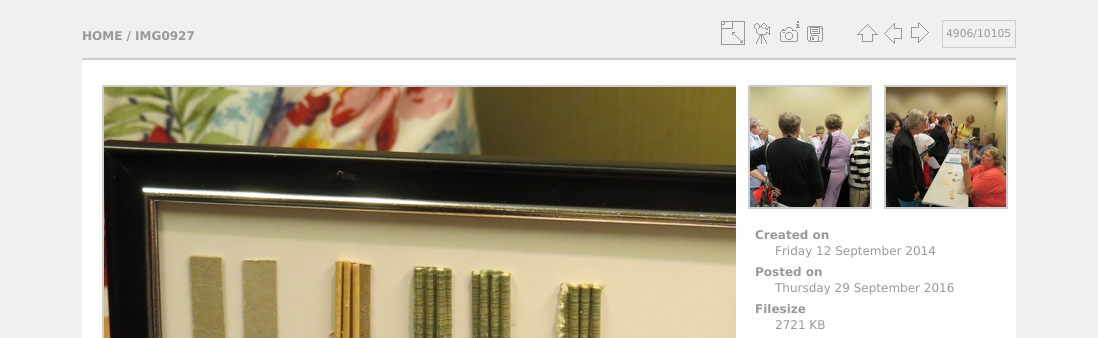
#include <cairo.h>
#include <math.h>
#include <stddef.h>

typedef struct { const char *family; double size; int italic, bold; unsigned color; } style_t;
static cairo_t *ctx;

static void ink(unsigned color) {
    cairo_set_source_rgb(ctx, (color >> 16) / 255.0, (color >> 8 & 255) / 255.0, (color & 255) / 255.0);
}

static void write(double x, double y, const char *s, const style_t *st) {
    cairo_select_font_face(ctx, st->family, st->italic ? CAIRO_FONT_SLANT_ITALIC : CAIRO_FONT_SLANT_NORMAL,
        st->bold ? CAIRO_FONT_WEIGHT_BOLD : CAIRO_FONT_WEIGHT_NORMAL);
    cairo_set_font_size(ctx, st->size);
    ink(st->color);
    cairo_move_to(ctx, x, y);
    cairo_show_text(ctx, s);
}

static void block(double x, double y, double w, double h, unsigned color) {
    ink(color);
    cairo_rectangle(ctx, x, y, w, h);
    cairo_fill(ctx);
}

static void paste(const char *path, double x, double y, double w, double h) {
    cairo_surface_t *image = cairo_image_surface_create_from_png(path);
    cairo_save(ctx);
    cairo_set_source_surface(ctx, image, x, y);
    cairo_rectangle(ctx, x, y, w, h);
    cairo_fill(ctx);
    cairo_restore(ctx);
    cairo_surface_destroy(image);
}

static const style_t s1 = {"DejaVu Sans", 12, 0, 1, 0x999999};
static const style_t s2 = {"DejaVu Sans", 10.75, 0, 0, 0x999999};
static const style_t s3 = {"DejaVu Sans", 12, 0, 0, 0x999999};

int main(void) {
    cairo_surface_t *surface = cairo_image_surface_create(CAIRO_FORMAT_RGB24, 1098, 338);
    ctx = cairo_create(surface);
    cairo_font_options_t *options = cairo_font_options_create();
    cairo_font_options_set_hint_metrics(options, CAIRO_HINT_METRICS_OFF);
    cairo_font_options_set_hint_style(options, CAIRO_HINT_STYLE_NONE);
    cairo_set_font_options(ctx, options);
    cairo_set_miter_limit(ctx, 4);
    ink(0xf0f0f0);
    cairo_paint(ctx);
    write(82, 40, "HOME / IMG0927", &s1);
    paste("pic1.png", 721, 21, 24, 24);
    paste("pic2.png", 754, 23, 16, 21);
    paste("pic3.png", 780, 21, 20, 21);
    paste("pic4.png", 807, 26, 16, 16);
    paste("pic5.png", 857, 24, 21, 18);
    paste("pic6.png", 884, 23, 18, 21);
    paste("pic7.png", 911, 22, 18, 21);
    cairo_rectangle(ctx, 942.5, 20.5, 73, 27);
    ink(0xcdcdcd);
    cairo_set_line_width(ctx, 1);
    cairo_stroke(ctx);
    write(946, 37, "4906/10105", &s2);
    block(82, 60, 934, 278, 0xffffff);
    block(82, 58, 934, 2, 0xcdcdcd);
    write(775, 255, "Friday 12 September 2014", &s3);
    write(775, 292, "Thursday 29 September 2016", &s3);
    cairo_save(ctx);
    cairo_rectangle(ctx, 82, 75, 654, 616);
    cairo_clip(ctx);
    cairo_rectangle(ctx, 103, 86, 794, 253);
    ink(0xcdcdcd);
    cairo_set_line_width(ctx, 2);
    cairo_stroke(ctx);
    cairo_restore(ctx);
    paste("pic8.png", 104, 87, 632, 251);
    cairo_rectangle(ctx, 749, 86, 122, 122);
    ink(0xcdcdcd);
    cairo_set_line_width(ctx, 2);
    cairo_stroke(ctx);
    paste("pic9.png", 750, 87, 120, 120);
    cairo_rectangle(ctx, 885, 86, 122, 122);
    cairo_stroke(ctx);
    paste("pic10.png", 886, 87, 120, 120);
    write(755, 239, "Created on", &s1);
    write(755, 276, "Posted on", &s1);
    write(755, 313, "Filesize", &s1);
    write(775, 329, "2721 KB", &s3);
    cairo_surface_write_to_png(surface, "screenshot.png");
    cairo_font_options_destroy(options);
    cairo_destroy(ctx);
    cairo_surface_destroy(surface);
    return 0;
}
